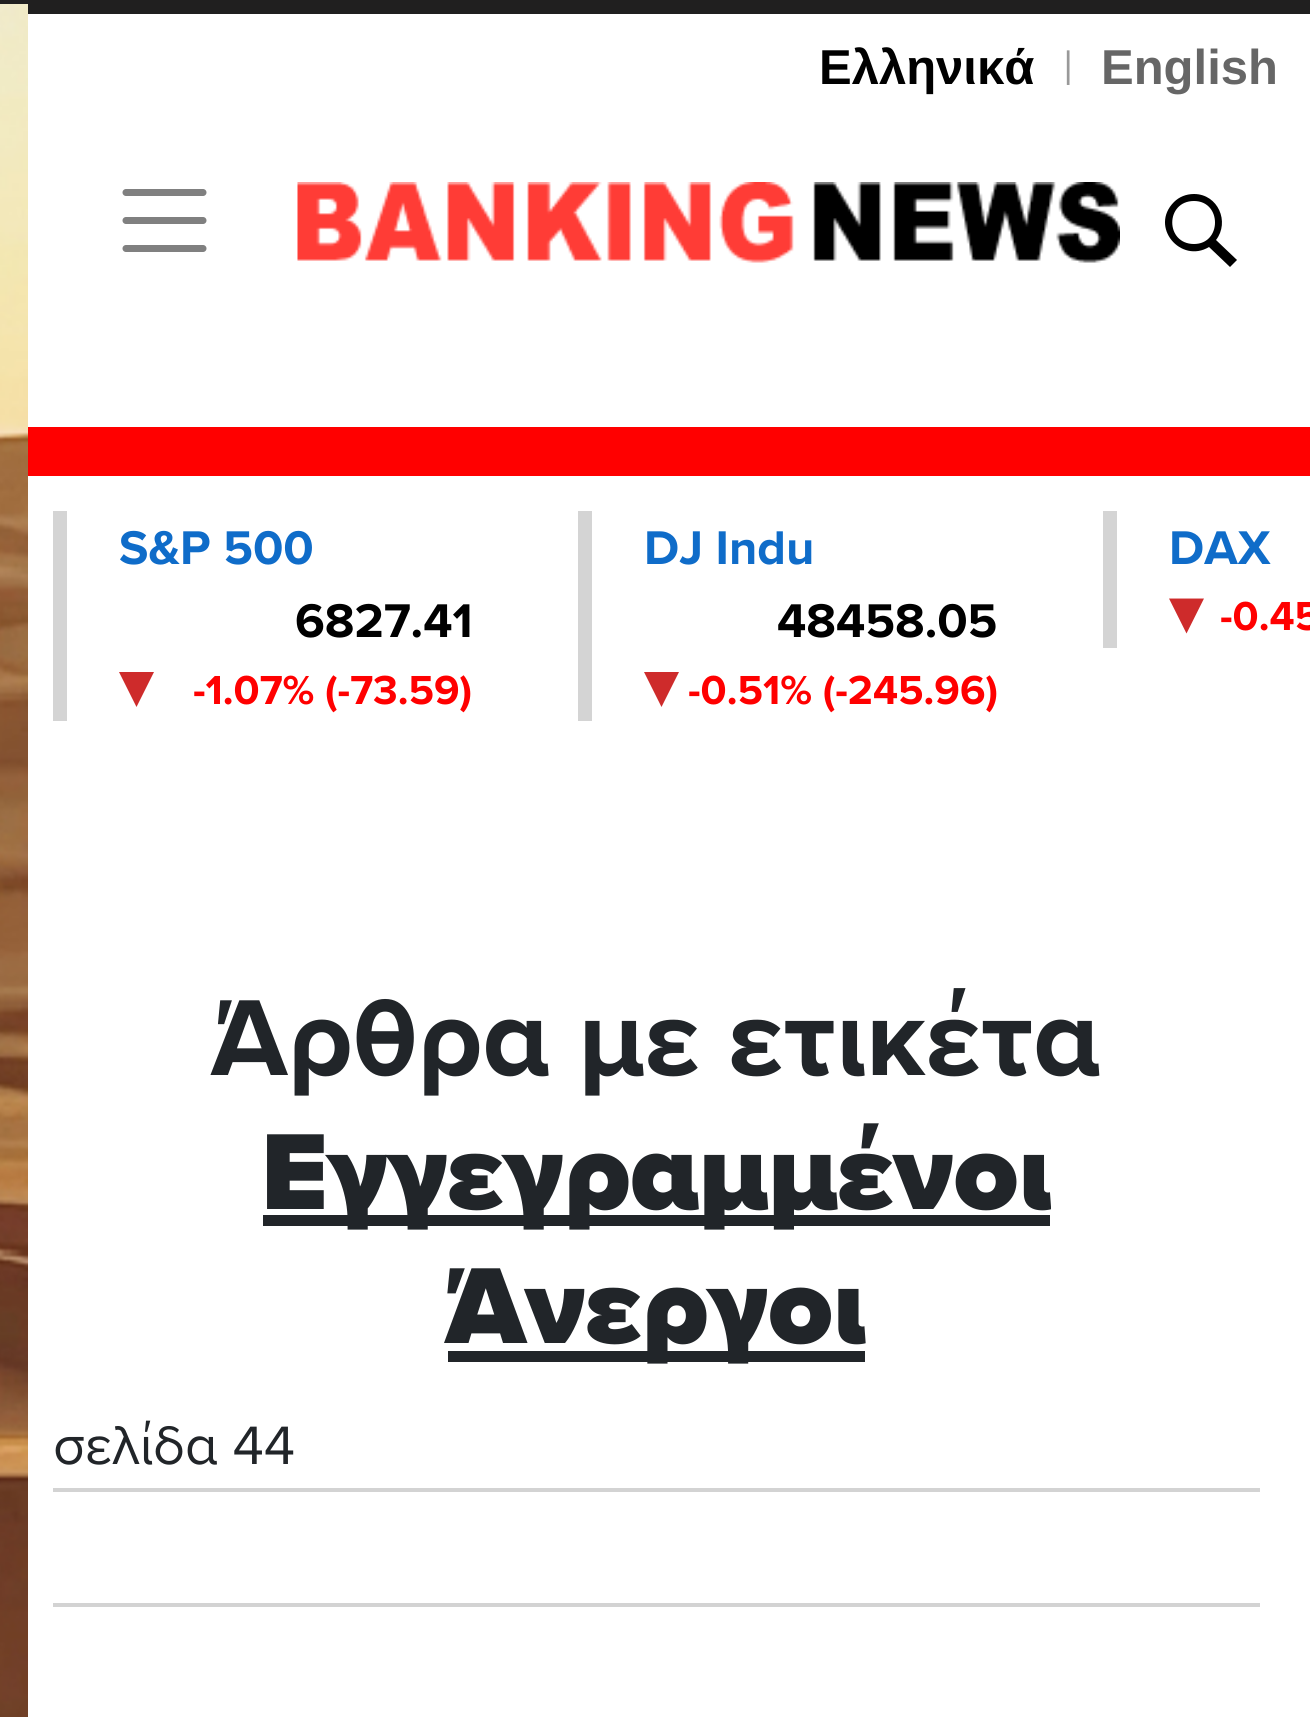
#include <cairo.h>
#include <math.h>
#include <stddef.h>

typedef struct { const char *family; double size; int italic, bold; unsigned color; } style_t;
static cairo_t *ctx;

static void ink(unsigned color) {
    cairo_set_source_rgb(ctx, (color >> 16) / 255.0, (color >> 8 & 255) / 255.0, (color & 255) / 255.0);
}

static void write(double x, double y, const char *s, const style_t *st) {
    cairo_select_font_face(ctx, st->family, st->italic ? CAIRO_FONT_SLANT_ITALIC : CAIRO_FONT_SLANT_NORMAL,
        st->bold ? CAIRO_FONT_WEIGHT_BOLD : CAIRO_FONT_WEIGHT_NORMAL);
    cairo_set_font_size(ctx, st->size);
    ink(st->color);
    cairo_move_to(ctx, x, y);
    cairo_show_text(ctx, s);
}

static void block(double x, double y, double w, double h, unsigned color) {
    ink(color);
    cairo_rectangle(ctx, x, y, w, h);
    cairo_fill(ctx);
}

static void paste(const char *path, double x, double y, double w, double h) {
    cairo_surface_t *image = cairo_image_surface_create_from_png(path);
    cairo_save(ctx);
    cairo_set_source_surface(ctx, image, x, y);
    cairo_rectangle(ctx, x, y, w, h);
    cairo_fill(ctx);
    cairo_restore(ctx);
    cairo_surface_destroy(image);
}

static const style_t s1 = {"Liberation Sans", 49, 0, 1, 0x000000};
static const style_t s2 = {"Proxima Nova", 49, 0, 0, 0x999999};
static const style_t s3 = {"Liberation Sans", 49, 0, 1, 0x666666};
static const style_t s4 = {"Proxima Nova", 49, 0, 1, 0x0f6cc9};
static const style_t s5 = {"Proxima Nova", 49, 0, 1, 0x000000};
static const style_t s6 = {"Proxima Nova", 42, 0, 1, 0xff0000};
static const style_t s7 = {"Proxima Nova", 112, 0, 1, 0x212529};
static const style_t s8 = {"Proxima Nova Black", 112, 0, 0, 0x212529};
static const style_t s9 = {"Proxima Nova", 56, 0, 0, 0x212529};

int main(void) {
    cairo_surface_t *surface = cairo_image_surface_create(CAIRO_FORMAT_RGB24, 1310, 1717);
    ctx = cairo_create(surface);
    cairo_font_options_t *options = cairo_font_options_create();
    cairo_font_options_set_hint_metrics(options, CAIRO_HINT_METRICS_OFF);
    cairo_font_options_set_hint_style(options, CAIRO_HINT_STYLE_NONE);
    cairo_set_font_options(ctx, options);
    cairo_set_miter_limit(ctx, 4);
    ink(0xffffff);
    cairo_paint(ctx);
    block(0, 0, 1310, 14, 0x201f1f);
    paste("pic1.png", 0, 4, 28, 1713);
    block(28, 427, 1282, 49, 0xff0000);
    write(819, 84, "Ελληνικά", &s1);
    write(1063, 84, "|", &s2);
    write(1101, 84, "English", &s3);
    cairo_new_path(ctx);
    cairo_move_to(ctx, 126, 192.5);
    cairo_line_to(ctx, 203, 192.5);
    cairo_move_to(ctx, 126, 220.5);
    cairo_line_to(ctx, 203, 220.5);
    cairo_move_to(ctx, 126, 248.5);
    cairo_line_to(ctx, 203, 248.5);
    ink(0x808080);
    cairo_set_line_width(ctx, 7);
    cairo_set_line_cap(ctx, CAIRO_LINE_CAP_ROUND);
    cairo_stroke(ctx);
    paste("pic2.png", 297, 182, 823, 81);
    ink(0x000000);
    cairo_new_path(ctx);
    cairo_move_to(ctx, 1194, 194);
    cairo_curve_to(ctx, 1186, 194, 1179, 197, 1174, 202);
    cairo_curve_to(ctx, 1149, 227, 1181, 264, 1209, 247);
    cairo_line_to(ctx, 1230, 267);
    cairo_line_to(ctx, 1237, 260);
    cairo_line_to(ctx, 1216, 240);
    cairo_curve_to(ctx, 1230, 222, 1218, 194, 1194, 194);
    cairo_close_path(ctx);
    cairo_move_to(ctx, 1194, 201);
    cairo_curve_to(ctx, 1222, 201, 1222, 244, 1194, 244);
    cairo_curve_to(ctx, 1165, 244, 1165, 201, 1194, 201);
    cairo_close_path(ctx);
    cairo_fill(ctx);
    block(53, 511, 14, 210, 0xd4d4d4);
    write(119, 564, "S&P 500", &s4);
    write(295, 637, "6827.41", &s5);
    ink(0xce2b2b);
    cairo_new_path(ctx);
    cairo_move_to(ctx, 119, 672);
    cairo_line_to(ctx, 154, 672);
    cairo_line_to(ctx, 136.5, 707);
    cairo_close_path(ctx);
    cairo_fill(ctx);
    write(193, 704, "-1.07% (-73.59)", &s6);
    block(578, 511, 14, 210, 0xd4d4d4);
    write(644, 564, "DJ Indu", &s4);
    write(777, 637, "48458.05", &s5);
    ink(0xce2b2b);
    cairo_new_path(ctx);
    cairo_move_to(ctx, 644, 672);
    cairo_line_to(ctx, 679, 672);
    cairo_line_to(ctx, 661.5, 707);
    cairo_close_path(ctx);
    cairo_fill(ctx);
    write(688, 704, "-0.51% (-245.96)", &s6);
    block(1103, 511, 14, 137, 0xd4d4d4);
    write(1169, 564, "DAX", &s4);
    ink(0xce2b2b);
    cairo_new_path(ctx);
    cairo_move_to(ctx, 1169, 598.5);
    cairo_line_to(ctx, 1204, 598.5);
    cairo_line_to(ctx, 1186.5, 633.5);
    cairo_close_path(ctx);
    cairo_fill(ctx);
    write(1220, 630, "-0.45", &s6);
    write(211, 1075, "Άρθρα με ετικέτα", &s7);
    block(263, 1215, 787, 11, 0x212529);
    write(261, 1209, "Εγγεγραμμένοι", &s8);
    block(448, 1351, 417, 11, 0x212529);
    write(446, 1343, "Άνεργοι", &s8);
    write(53, 1464, "σελίδα 44", &s9);
    block(53, 1488, 1207, 4, 0xd3d3d3);
    block(53, 1603, 1207, 4, 0xd3d3d3);
    cairo_surface_write_to_png(surface, "screenshot.png");
    cairo_font_options_destroy(options);
    cairo_destroy(ctx);
    cairo_surface_destroy(surface);
    return 0;
}
